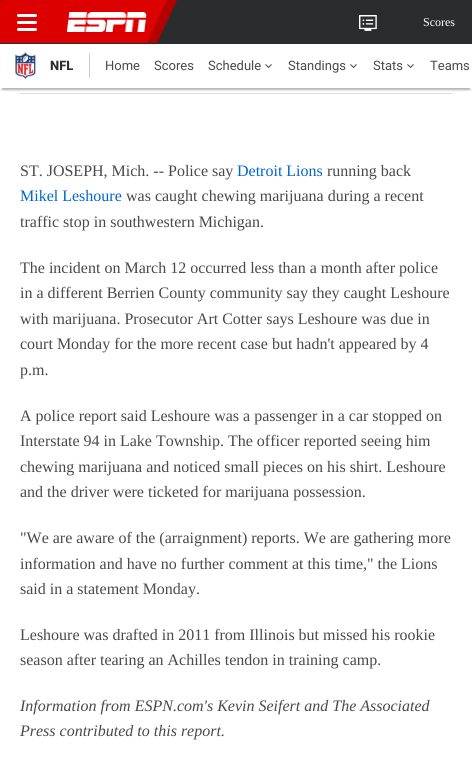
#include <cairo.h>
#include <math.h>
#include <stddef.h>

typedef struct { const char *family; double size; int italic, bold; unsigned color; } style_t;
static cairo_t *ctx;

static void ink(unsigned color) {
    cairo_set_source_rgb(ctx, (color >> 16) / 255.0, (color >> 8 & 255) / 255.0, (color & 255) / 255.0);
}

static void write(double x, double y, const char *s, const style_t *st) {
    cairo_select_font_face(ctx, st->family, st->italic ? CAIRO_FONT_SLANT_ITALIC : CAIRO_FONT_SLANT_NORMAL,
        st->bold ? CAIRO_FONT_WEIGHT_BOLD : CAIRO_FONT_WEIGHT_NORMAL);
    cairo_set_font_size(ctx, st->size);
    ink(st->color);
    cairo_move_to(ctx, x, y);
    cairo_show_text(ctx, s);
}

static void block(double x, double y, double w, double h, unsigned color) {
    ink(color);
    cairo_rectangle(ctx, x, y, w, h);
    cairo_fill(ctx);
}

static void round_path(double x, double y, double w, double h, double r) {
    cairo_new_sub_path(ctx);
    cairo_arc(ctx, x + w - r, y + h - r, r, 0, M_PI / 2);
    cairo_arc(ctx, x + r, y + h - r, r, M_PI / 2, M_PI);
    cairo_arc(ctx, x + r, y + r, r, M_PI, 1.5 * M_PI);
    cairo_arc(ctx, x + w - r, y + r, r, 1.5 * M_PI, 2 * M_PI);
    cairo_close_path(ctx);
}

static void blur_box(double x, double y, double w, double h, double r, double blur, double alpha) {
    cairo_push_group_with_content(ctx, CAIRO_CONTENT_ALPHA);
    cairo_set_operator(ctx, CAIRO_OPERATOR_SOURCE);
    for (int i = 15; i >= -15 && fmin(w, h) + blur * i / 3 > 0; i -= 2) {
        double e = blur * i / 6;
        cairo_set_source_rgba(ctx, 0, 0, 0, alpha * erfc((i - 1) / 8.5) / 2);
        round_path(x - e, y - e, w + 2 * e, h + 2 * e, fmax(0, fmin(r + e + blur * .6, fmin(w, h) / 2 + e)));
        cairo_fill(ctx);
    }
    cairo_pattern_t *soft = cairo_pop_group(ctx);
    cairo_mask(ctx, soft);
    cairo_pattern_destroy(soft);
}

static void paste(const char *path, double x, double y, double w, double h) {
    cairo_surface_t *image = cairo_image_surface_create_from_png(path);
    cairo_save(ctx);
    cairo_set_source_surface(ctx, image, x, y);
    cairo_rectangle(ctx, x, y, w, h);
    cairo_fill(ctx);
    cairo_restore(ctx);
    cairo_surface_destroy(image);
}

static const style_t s1 = {"Liberation Serif", 12, 0, 0, 0xffffff};
static const style_t s2 = {"Roboto ExtraBold", 13, 0, 0, 0x2b2c2d};
static const style_t s3 = {"Roboto", 13, 0, 0, 0x48494a};
static const style_t s4 = {"Liberation Serif", 16, 0, 0, 0x48494a};
static const style_t s5 = {"Liberation Serif", 16, 0, 0, 0x0066cc};
static const style_t s6 = {"Liberation Serif", 16, 1, 0, 0x48494a};

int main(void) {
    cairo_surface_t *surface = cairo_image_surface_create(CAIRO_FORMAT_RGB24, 472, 772);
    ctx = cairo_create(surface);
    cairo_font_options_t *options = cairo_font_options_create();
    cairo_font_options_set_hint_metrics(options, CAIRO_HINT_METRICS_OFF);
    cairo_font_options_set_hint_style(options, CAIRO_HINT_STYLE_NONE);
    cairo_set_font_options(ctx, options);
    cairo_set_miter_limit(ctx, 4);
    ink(0xffffff);
    cairo_paint(ctx);
    block(0, 0, 472, 44, 0x2b2c2d);
    ink(0xb40000);
    cairo_new_path(ctx);
    cairo_move_to(ctx, 54, 0);
    cairo_line_to(ctx, 177, 0);
    cairo_line_to(ctx, 157, 43);
    cairo_line_to(ctx, 34, 43);
    cairo_close_path(ctx);
    cairo_fill(ctx);
    ink(0xdd0000);
    cairo_new_path(ctx);
    cairo_move_to(ctx, 1, 0);
    cairo_line_to(ctx, 167, 0);
    cairo_line_to(ctx, 147, 43);
    cairo_line_to(ctx, -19, 43);
    cairo_close_path(ctx);
    cairo_fill(ctx);
    paste("pic1.png", 67, 12, 80, 20);
    ink(0xffffff);
    round_path(17, 21, 20, 3, 1.5);
    cairo_fill(ctx);
    round_path(17, 14, 20, 3, 1.5);
    cairo_fill(ctx);
    round_path(17, 28, 20, 3, 1.5);
    cairo_fill(ctx);
    paste("pic2.png", 359, 15, 18, 16);
    write(423, 26, "Scores", &s1);
    block(20, 93, 432, 1, 0xdcdddf);
    ink(0x000000);
    blur_box(2, 50, 468, 40, 0, 1, 0.3);
    ink(0xffffff);
    round_path(0, 44, 472, 44, 1);
    cairo_fill(ctx);
    paste("pic3.png", 14, 51, 22, 29);
    write(50, 70, "NFL", &s2);
    block(89, 53, 1, 25, 0xcbccce);
    write(105, 70, "Home", &s3);
    write(154, 70, "Scores", &s3);
    write(208, 70, "Schedule", &s3);
    paste("pic4.png", 265, 64, 7, 5);
    write(288, 70, "Standings", &s3);
    paste("pic4.png", 350, 64, 7, 5);
    write(373, 70, "Stats", &s3);
    paste("pic4.png", 407, 64, 7, 5);
    write(430, 70, "Teams", &s3);
    write(20, 176, "ST. JOSEPH, Mich. -- Police say", &s4);
    write(237, 176, "Detroit Lions", &s5);
    write(327, 176, "running back", &s4);
    write(20, 201, "Mikel Leshoure", &s5);
    write(126, 201, "was caught chewing marijuana during a recent", &s4);
    write(20, 227, "traffic stop in southwestern Michigan.", &s4);
    write(20, 273, "The incident on March 12 occurred less than a month after police", &s4);
    write(20, 298, "in a different Berrien County community say they caught Leshoure", &s4);
    write(20, 324, "with marijuana. Prosecutor Art Cotter says Leshoure was due in", &s4);
    write(20, 349, "court Monday for the more recent case but hadn't appeared by 4", &s4);
    write(20, 375, "p.m.", &s4);
    write(20, 421, "A police report said Leshoure was a passenger in a car stopped on", &s4);
    write(20, 446, "Interstate 94 in Lake Township. The officer reported seeing him", &s4);
    write(20, 472, "chewing marijuana and noticed small pieces on his shirt. Leshoure", &s4);
    write(20, 497, "and the driver were ticketed for marijuana possession.", &s4);
    write(20, 543, "\"We are aware of the (arraignment) reports. We are gathering more", &s4);
    write(20, 569, "information and have no further comment at this time,\" the Lions", &s4);
    write(20, 594, "said in a statement Monday.", &s4);
    write(20, 640, "Leshoure was drafted in 2011 from Illinois but missed his rookie", &s4);
    write(20, 665, "season after tearing an Achilles tendon in training camp.", &s4);
    write(20, 711, "Information from ESPN.com's Kevin Seifert and The Associated", &s6);
    write(20, 736, "Press contributed to this report.", &s6);
    cairo_surface_write_to_png(surface, "screenshot.png");
    cairo_font_options_destroy(options);
    cairo_destroy(ctx);
    cairo_surface_destroy(surface);
    return 0;
}
